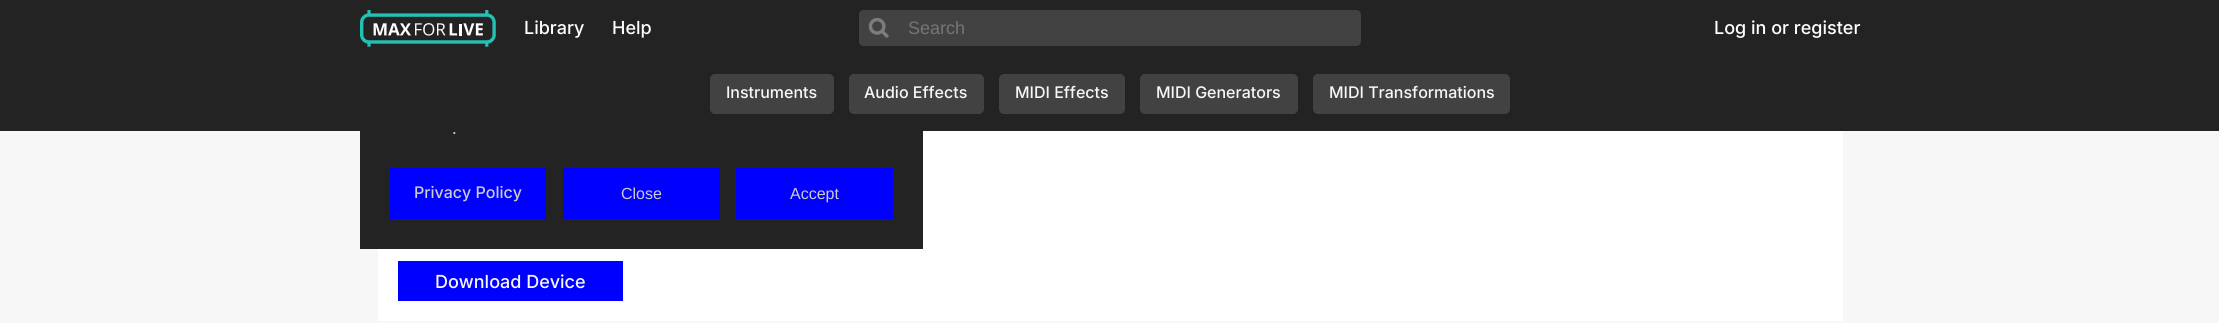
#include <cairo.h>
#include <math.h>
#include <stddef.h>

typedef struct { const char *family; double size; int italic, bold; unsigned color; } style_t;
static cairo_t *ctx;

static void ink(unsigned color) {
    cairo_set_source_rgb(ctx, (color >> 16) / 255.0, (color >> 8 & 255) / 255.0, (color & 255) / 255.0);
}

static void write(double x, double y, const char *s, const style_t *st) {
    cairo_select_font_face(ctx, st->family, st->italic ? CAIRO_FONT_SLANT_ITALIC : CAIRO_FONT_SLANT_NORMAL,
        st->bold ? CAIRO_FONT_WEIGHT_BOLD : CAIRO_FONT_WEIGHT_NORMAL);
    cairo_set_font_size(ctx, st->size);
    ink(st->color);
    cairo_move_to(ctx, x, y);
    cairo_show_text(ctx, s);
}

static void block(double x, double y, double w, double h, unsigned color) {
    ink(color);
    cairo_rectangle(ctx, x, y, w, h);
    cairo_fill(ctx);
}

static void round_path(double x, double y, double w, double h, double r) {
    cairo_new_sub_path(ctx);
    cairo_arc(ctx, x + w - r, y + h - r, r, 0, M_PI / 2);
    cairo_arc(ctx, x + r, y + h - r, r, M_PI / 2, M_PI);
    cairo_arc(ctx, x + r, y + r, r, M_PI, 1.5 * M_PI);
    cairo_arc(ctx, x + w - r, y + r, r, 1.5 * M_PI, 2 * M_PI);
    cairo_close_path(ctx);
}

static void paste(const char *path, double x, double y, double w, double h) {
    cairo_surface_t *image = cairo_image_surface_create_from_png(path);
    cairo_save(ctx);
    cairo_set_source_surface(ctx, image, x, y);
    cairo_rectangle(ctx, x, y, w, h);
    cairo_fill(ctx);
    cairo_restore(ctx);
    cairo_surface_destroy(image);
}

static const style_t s1 = {"Inter Medium", 18, 0, 0, 0xffffff};
static const style_t s2 = {"Liberation Sans", 18, 0, 0, 0x757575};
static const style_t s3 = {"Inter Medium", 16, 0, 0, 0xf7f7f7};
static const style_t s4 = {"Inter", 16, 0, 0, 0xcccccc};
static const style_t s5 = {"Inter Medium", 16, 0, 0, 0xcccccc};
static const style_t s6 = {"Liberation Sans", 16, 0, 0, 0xcccccc};
static const style_t s7 = {"Inter Medium", 18, 0, 0, 0xf7f7f7};

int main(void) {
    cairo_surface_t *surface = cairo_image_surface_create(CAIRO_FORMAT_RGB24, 2219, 323);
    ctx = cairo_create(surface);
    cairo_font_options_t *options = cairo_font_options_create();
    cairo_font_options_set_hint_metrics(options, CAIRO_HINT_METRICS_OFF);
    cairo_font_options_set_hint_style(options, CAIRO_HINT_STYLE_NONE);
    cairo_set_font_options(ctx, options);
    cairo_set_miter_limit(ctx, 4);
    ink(0xf7f7f7);
    cairo_paint(ctx);
    block(0, 0, 2219, 131, 0x232323);
    paste("pic1.png", 360, 10, 136, 37);
    write(524, 34, "Library", &s1);
    write(612, 34, "Help", &s1);
    ink(0x424242);
    cairo_new_path(ctx);
    cairo_move_to(ctx, 864, 10);
    cairo_line_to(ctx, 899, 10);
    cairo_line_to(ctx, 899, 46);
    cairo_line_to(ctx, 864, 46);
    cairo_curve_to(ctx, 861, 46, 859, 44, 859, 41);
    cairo_line_to(ctx, 859, 15);
    cairo_curve_to(ctx, 859, 12, 861, 10, 864, 10);
    cairo_close_path(ctx);
    cairo_fill(ctx);
    paste("pic2.png", 868, 18, 21, 20);
    cairo_new_path(ctx);
    cairo_move_to(ctx, 899, 10);
    cairo_line_to(ctx, 1356, 10);
    cairo_curve_to(ctx, 1359, 10, 1361, 12, 1361, 15);
    cairo_line_to(ctx, 1361, 41);
    cairo_curve_to(ctx, 1361, 44, 1359, 46, 1356, 46);
    cairo_line_to(ctx, 899, 46);
    cairo_close_path(ctx);
    cairo_fill(ctx);
    write(908, 34, "Search", &s2);
    write(1714, 34, "Log in or register", &s1);
    ink(0x424242);
    round_path(710, 74, 124, 40, 5);
    cairo_fill(ctx);
    write(726, 98, "Instruments", &s3);
    ink(0x424242);
    round_path(849, 74, 135, 40, 5);
    cairo_fill(ctx);
    write(864, 98, "Audio Effects", &s3);
    ink(0x424242);
    round_path(999, 74, 126, 40, 5);
    cairo_fill(ctx);
    write(1015, 98, "MIDI Effects", &s3);
    ink(0x424242);
    round_path(1140, 74, 158, 40, 5);
    cairo_fill(ctx);
    write(1156, 98, "MIDI Generators", &s3);
    ink(0x424242);
    round_path(1313, 74, 197, 40, 5);
    cairo_fill(ctx);
    write(1329, 98, "MIDI Transformations", &s3);
    block(378, 131, 1465, 190, 0xffffff);
    block(360, 131, 563, 118, 0x232323);
    write(452, 134, ".", &s4);
    block(390, 168, 156, 51, 0x0000ff);
    write(414, 198, "Privacy Policy", &s5);
    block(563, 168, 157, 51, 0x0000ff);
    write(621, 199, "Close", &s6);
    block(736, 168, 157, 51, 0x0000ff);
    write(790, 199, "Accept", &s6);
    block(398, 261, 225, 40, 0x0000ff);
    write(435, 288, "Download Device", &s7);
    cairo_surface_write_to_png(surface, "screenshot.png");
    cairo_font_options_destroy(options);
    cairo_destroy(ctx);
    cairo_surface_destroy(surface);
    return 0;
}
